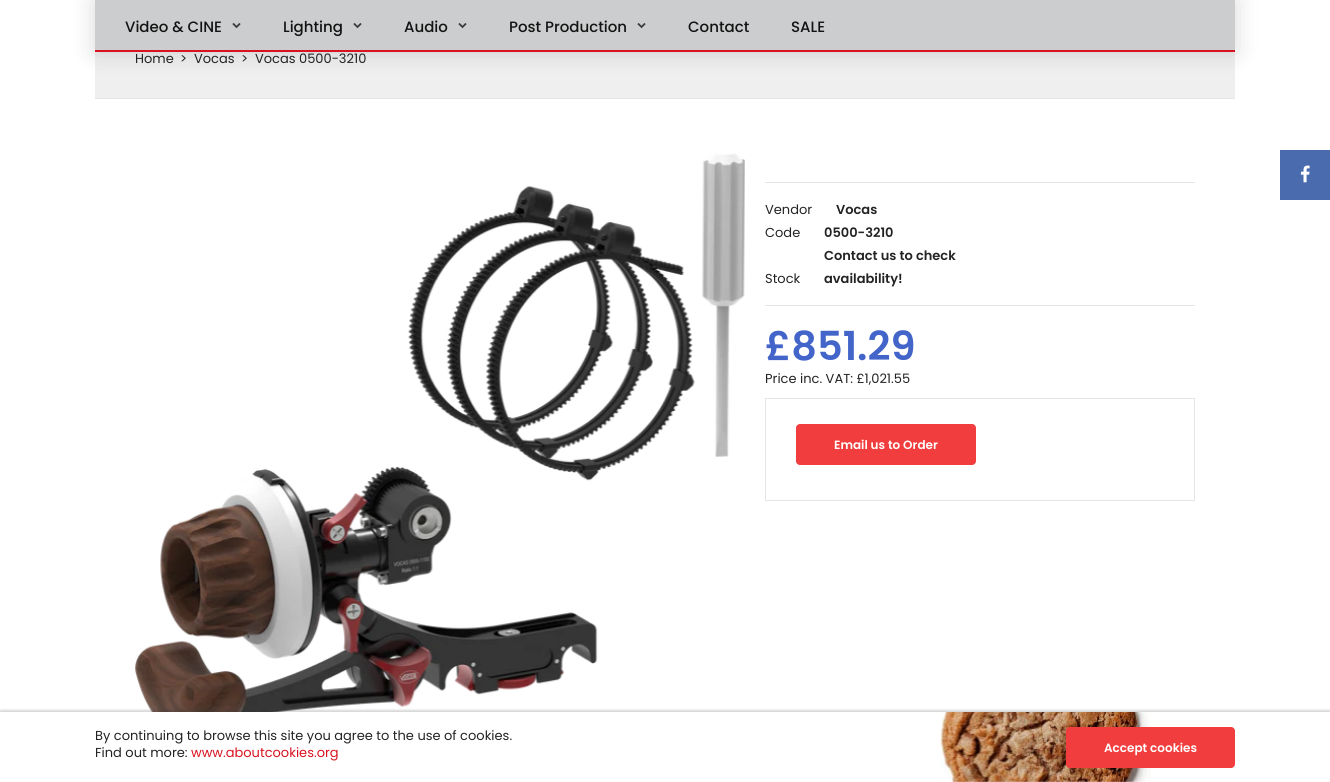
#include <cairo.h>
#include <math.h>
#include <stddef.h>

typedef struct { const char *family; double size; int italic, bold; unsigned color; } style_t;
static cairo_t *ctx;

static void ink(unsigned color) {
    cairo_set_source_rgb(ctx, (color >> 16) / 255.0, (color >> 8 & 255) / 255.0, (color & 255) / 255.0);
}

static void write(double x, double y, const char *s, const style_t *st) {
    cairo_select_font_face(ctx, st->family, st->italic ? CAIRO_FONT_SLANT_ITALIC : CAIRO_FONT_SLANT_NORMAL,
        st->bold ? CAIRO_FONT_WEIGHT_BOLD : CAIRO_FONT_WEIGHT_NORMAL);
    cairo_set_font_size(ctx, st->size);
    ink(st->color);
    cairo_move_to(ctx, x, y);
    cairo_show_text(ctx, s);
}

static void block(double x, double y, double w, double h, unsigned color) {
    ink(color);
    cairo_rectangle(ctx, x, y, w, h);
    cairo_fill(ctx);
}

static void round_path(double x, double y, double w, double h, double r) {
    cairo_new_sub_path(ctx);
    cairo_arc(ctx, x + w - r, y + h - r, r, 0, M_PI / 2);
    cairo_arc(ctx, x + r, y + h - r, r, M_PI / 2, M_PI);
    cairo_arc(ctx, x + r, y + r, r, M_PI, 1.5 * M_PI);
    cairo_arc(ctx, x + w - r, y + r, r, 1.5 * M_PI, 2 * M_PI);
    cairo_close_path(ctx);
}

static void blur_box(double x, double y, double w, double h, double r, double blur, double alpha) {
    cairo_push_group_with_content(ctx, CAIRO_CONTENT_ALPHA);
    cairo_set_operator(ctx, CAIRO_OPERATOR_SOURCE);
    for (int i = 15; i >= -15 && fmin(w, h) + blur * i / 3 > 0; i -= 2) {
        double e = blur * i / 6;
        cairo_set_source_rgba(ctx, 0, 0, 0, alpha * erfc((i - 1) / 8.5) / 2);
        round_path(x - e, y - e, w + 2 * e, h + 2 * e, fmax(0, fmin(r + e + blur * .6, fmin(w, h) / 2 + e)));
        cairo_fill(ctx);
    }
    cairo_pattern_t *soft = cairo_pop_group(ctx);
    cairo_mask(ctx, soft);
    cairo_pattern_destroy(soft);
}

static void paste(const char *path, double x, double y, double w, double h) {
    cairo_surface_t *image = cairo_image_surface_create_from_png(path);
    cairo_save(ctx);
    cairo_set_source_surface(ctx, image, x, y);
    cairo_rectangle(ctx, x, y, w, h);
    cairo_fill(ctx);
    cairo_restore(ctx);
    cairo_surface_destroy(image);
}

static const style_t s1 = {"Poppins Medium", 15, 0, 0, 0x131313};
static const style_t s2 = {"Poppins", 13, 0, 0, 0x232323};
static const style_t s3 = {"Poppins SemiBold", 13, 0, 0, 0x232323};
static const style_t s4 = {"Poppins SemiBold", 40, 0, 0, 0x4365ca};
static const style_t s5 = {"Poppins SemiBold", 12, 0, 0, 0xffffff};
static const style_t s6 = {"Poppins", 13, 0, 0, 0xd9121f};

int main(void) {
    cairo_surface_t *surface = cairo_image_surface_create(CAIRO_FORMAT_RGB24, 1330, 782);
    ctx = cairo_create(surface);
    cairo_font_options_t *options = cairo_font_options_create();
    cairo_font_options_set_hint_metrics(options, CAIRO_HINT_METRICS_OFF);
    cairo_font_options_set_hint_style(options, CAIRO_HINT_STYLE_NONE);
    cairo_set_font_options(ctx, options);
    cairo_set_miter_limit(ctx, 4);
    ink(0xffffff);
    cairo_paint(ctx);
    block(95, 52, 1140, 46, 0xefefef);
    ink(0x000000);
    blur_box(95, 0, 1140, 52, 0, 12.5, 0.15);
    block(95, 0, 1140, 50, 0xcccdce);
    block(95, 50, 1140, 2, 0xd9121f);
    write(125, 32, "Video & CINE", &s1);
    paste("pic1.png", 232, 23, 9, 6);
    write(283, 32, "Lighting", &s1);
    paste("pic1.png", 353, 23, 9, 6);
    write(404, 32, "Audio", &s1);
    paste("pic1.png", 458, 23, 9, 6);
    write(509, 32, "Post Production", &s1);
    paste("pic1.png", 637, 23, 9, 6);
    write(688, 32, "Contact", &s1);
    write(791, 32, "SALE", &s1);
    block(95, 98, 1140, 1, 0xe5e5e5);
    write(135, 63, "Home", &s2);
    write(180, 63, ">", &s2);
    write(194, 63, "Vocas", &s2);
    write(241, 63, ">", &s2);
    write(255, 63, "Vocas 0500-3210", &s2);
    paste("pic2.png", 135, 153, 610, 559);
    block(765, 182, 430, 1, 0xe5e5e5);
    block(765, 305, 430, 1, 0xe5e5e5);
    write(765, 214, "Vendor", &s2);
    write(836, 214, "Vocas", &s3);
    write(765, 237, "Code", &s2);
    write(824, 237, "0500-3210", &s3);
    write(765, 283, "Stock", &s2);
    write(824, 260, "Contact us to check", &s3);
    write(824, 283, "availability!", &s3);
    write(765, 360, "£851.29", &s4);
    write(765, 383, "Price inc. VAT: £1,021.55", &s2);
    cairo_rectangle(ctx, 765.5, 398.5, 429, 102);
    ink(0xe5e5e5);
    cairo_set_line_width(ctx, 1);
    cairo_stroke(ctx);
    ink(0xf13d3e);
    round_path(796, 424, 180, 41, 4);
    cairo_fill(ctx);
    write(834, 449, "Email us to Order", &s5);
    block(1280, 150, 50, 50, 0x4b6baf);
    paste("pic3.png", 1300, 165, 10, 18);
    ink(0x323232);
    blur_box(0, 710, 1330, 70, 0, 1, 0.2);
    block(0, 712, 1330, 69, 0xffffff);
    paste("pic4.png", 940, 712, 211, 70);
    write(95, 740, "By continuing to browse this site you agree to the use of cookies.", &s2);
    write(95, 757, "Find out more:", &s2);
    write(191, 757, "www.aboutcookies.org", &s6);
    ink(0xf13d3e);
    round_path(1066, 727, 169, 41, 4);
    cairo_fill(ctx);
    write(1104, 752, "Accept cookies", &s5);
    cairo_surface_write_to_png(surface, "screenshot.png");
    cairo_font_options_destroy(options);
    cairo_destroy(ctx);
    cairo_surface_destroy(surface);
    return 0;
}
